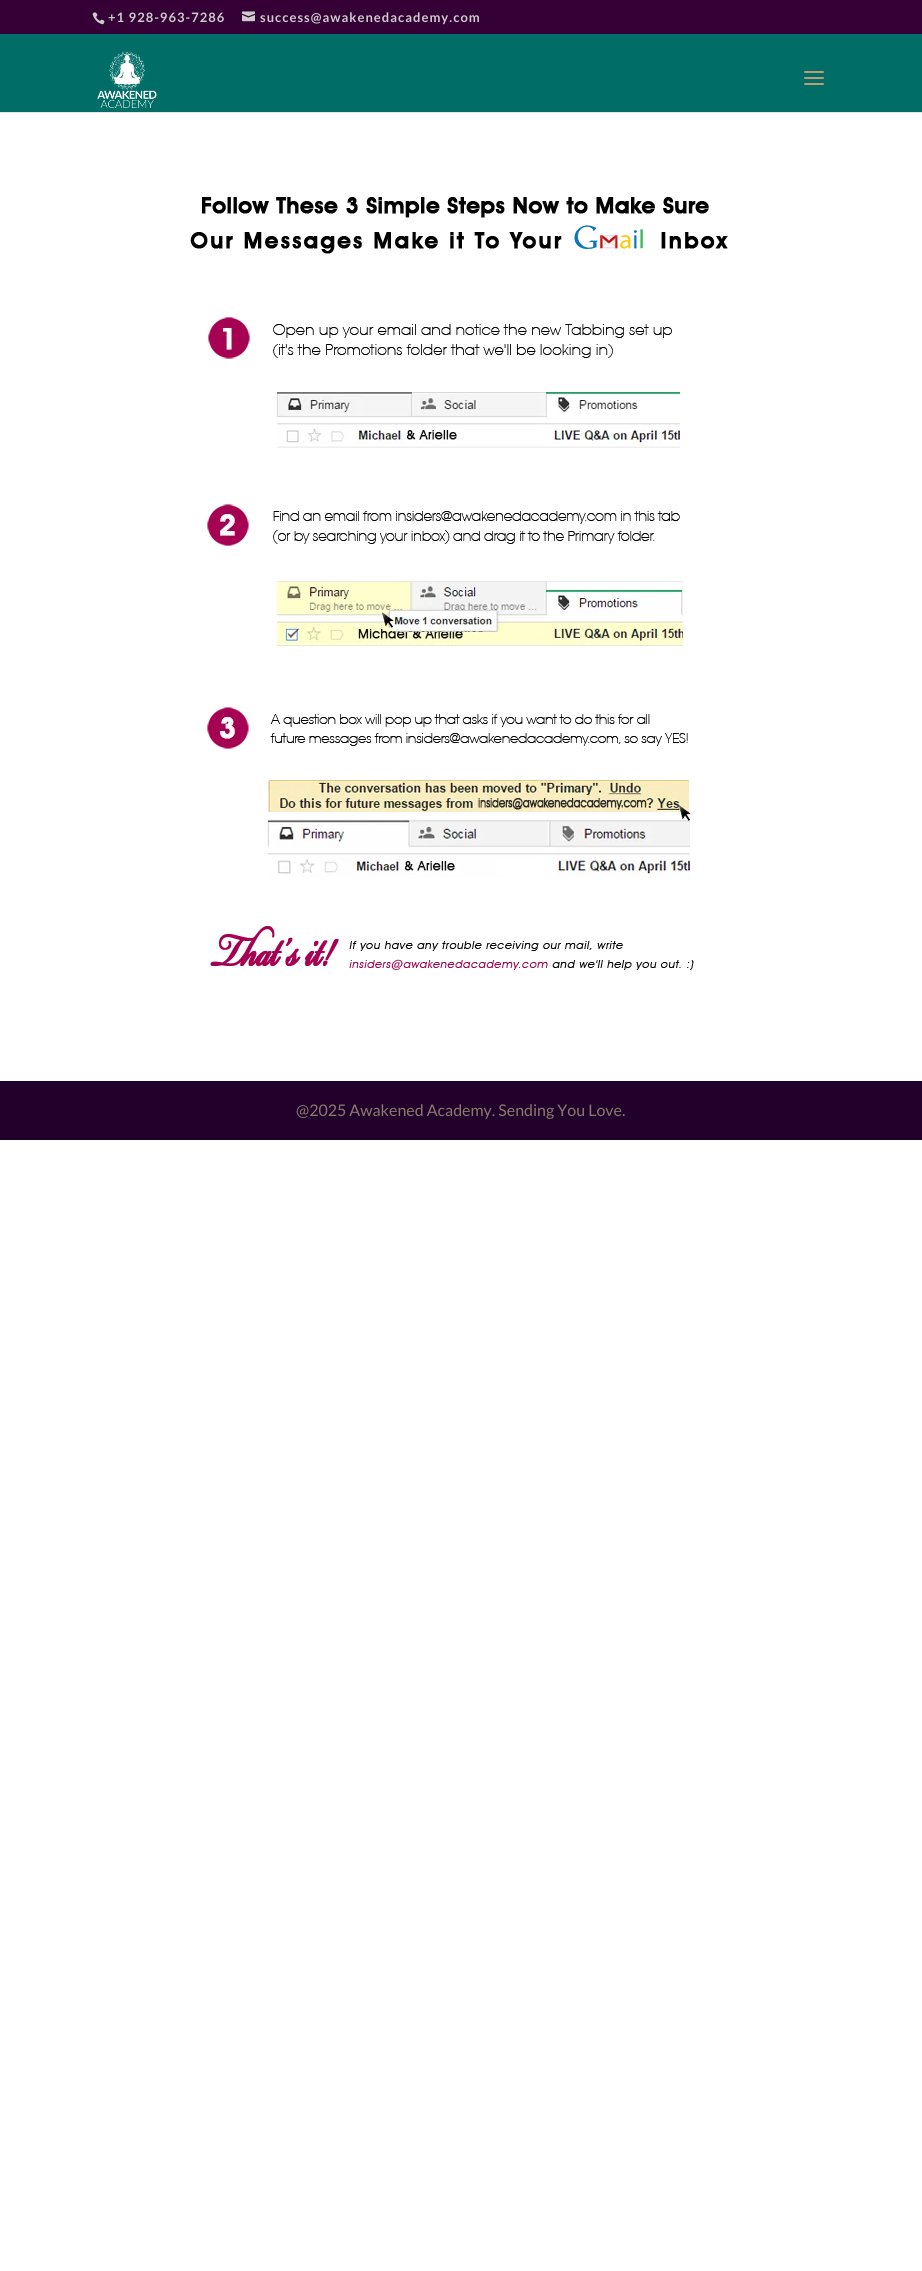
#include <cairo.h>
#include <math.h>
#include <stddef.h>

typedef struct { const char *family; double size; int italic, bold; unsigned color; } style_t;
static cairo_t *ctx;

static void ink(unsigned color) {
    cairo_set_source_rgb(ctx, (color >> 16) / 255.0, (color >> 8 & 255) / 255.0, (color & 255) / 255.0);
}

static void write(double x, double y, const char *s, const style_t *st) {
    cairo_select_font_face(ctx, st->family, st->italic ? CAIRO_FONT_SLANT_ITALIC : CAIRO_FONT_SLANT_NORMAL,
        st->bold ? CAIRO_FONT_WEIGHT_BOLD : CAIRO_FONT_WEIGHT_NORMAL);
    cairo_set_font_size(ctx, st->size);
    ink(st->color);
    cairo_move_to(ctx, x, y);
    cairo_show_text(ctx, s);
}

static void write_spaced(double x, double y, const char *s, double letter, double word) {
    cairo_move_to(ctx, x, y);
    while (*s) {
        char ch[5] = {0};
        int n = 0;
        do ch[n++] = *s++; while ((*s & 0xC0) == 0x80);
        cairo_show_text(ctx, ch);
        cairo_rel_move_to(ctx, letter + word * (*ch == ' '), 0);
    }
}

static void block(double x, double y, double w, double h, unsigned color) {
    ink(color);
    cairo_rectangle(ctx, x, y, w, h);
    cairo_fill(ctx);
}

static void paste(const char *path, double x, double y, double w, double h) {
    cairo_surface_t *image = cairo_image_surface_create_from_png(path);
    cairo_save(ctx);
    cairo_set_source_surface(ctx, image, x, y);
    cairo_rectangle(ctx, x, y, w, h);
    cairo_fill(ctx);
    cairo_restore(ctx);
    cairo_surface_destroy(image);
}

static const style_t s1 = {"Lato", 16, 0, 0, 0x8c7b6a};

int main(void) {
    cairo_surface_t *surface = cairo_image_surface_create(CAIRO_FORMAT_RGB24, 922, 2271);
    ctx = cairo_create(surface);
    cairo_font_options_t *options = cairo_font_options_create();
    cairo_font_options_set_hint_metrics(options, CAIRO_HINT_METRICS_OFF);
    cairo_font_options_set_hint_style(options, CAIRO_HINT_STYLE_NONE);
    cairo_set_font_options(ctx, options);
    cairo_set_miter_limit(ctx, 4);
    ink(0xffffff);
    cairo_paint(ctx);
    block(0, 0, 922, 34, 0x350035);
    paste("pic1.png", 92, 12, 13, 13);
    cairo_select_font_face(ctx, "Lato", CAIRO_FONT_SLANT_NORMAL, CAIRO_FONT_WEIGHT_BOLD);
    cairo_set_font_size(ctx, 13);
    ink(0xcccccc);
    write_spaced(108, 22, "+1 928-963-7286", 1, 0);
    paste("pic2.png", 242, 11, 13, 11);
    write_spaced(260, 22, "success@awakenedacademy.com", 1, 0);
    block(0, 112, 922, 1, 0xe6e6e6);
    block(0, 34, 922, 78, 0x006d67);
    paste("pic3.png", 97, 51, 60, 57);
    paste("pic4.png", 804, 71, 20, 14);
    paste("pic5.png", 190, 197, 538, 773);
    block(0, 1081, 922, 59, 0x22002c);
    write(296, 1116, "@2025 Awakened Academy. Sending You Love.", &s1);
    cairo_surface_write_to_png(surface, "screenshot.png");
    cairo_font_options_destroy(options);
    cairo_destroy(ctx);
    cairo_surface_destroy(surface);
    return 0;
}
